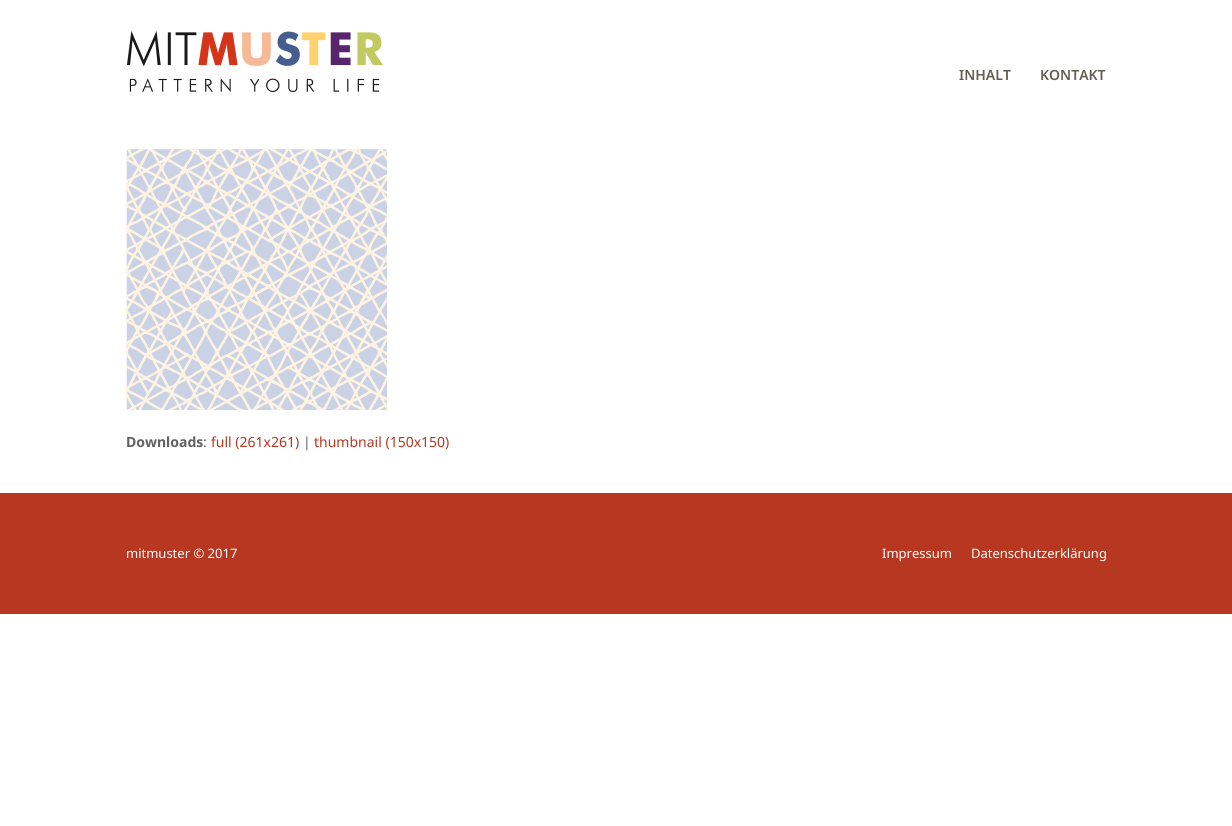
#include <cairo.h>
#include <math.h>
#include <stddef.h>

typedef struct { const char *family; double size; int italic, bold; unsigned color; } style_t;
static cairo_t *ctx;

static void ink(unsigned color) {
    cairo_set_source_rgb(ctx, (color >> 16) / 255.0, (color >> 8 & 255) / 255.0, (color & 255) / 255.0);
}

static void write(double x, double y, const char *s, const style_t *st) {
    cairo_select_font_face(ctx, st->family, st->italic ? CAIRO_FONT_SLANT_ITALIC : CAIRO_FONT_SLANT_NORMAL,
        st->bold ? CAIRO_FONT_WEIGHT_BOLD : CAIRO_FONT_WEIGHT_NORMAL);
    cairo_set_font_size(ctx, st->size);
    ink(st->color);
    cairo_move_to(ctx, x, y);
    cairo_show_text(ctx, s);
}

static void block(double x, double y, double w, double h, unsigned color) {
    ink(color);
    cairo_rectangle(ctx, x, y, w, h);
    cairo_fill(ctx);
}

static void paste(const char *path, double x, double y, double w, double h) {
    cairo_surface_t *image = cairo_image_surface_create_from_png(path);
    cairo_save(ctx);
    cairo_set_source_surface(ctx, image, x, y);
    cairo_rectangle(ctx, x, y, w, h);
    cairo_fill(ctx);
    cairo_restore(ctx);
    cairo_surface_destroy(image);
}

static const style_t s1 = {"Noto Sans SemiBold", 14, 0, 0, 0x665d52};
static const style_t s2 = {"Noto Sans", 14, 0, 1, 0x616161};
static const style_t s3 = {"Noto Sans", 14, 0, 0, 0x616161};
static const style_t s4 = {"Noto Sans", 14, 0, 0, 0xb83721};
static const style_t s5 = {"Noto Sans", 13, 0, 0, 0xffffff};

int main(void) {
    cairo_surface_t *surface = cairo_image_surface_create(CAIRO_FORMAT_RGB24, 1232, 826);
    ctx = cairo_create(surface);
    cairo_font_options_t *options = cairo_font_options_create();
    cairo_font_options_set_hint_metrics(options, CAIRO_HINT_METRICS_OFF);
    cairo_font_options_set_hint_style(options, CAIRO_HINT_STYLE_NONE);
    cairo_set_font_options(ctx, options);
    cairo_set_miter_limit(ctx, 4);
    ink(0xffffff);
    cairo_paint(ctx);
    paste("pic1.png", 127, 31, 256, 61);
    write(959, 80, "INHALT", &s1);
    write(1040, 80, "KONTAKT", &s1);
    paste("pic2.png", 126, 149, 261, 261);
    write(126, 447, "Downloads", &s2);
    write(203, 447, ":", &s3);
    write(211, 447, "full (261x261)", &s4);
    write(303, 447, "|", &s3);
    write(314, 447, "thumbnail (150x150)", &s4);
    block(0, 493, 1232, 121, 0xb83721);
    write(126, 558, "mitmuster © 2017", &s5);
    write(882, 558, "Impressum", &s5);
    write(971, 558, "Datenschutzerklärung", &s5);
    cairo_surface_write_to_png(surface, "screenshot.png");
    cairo_font_options_destroy(options);
    cairo_destroy(ctx);
    cairo_surface_destroy(surface);
    return 0;
}
